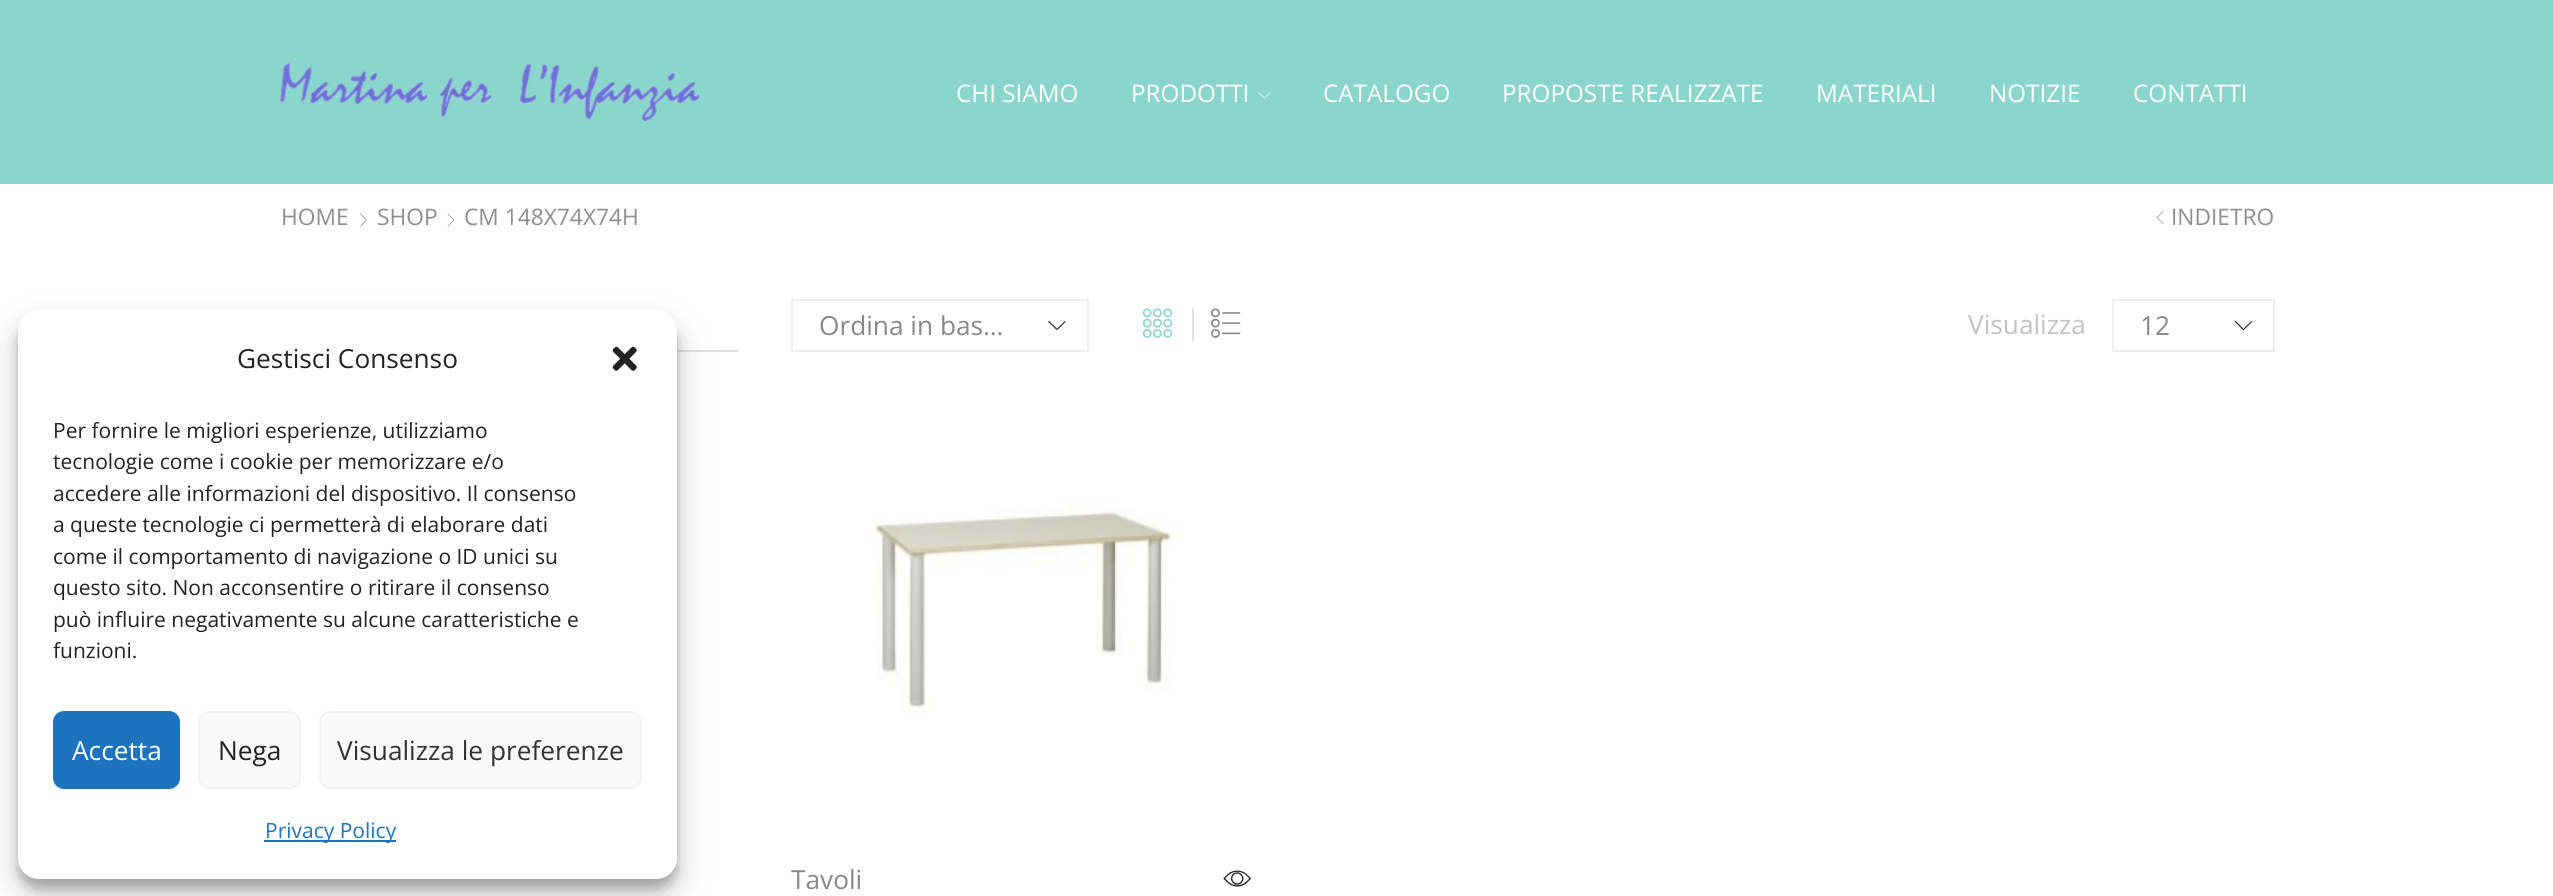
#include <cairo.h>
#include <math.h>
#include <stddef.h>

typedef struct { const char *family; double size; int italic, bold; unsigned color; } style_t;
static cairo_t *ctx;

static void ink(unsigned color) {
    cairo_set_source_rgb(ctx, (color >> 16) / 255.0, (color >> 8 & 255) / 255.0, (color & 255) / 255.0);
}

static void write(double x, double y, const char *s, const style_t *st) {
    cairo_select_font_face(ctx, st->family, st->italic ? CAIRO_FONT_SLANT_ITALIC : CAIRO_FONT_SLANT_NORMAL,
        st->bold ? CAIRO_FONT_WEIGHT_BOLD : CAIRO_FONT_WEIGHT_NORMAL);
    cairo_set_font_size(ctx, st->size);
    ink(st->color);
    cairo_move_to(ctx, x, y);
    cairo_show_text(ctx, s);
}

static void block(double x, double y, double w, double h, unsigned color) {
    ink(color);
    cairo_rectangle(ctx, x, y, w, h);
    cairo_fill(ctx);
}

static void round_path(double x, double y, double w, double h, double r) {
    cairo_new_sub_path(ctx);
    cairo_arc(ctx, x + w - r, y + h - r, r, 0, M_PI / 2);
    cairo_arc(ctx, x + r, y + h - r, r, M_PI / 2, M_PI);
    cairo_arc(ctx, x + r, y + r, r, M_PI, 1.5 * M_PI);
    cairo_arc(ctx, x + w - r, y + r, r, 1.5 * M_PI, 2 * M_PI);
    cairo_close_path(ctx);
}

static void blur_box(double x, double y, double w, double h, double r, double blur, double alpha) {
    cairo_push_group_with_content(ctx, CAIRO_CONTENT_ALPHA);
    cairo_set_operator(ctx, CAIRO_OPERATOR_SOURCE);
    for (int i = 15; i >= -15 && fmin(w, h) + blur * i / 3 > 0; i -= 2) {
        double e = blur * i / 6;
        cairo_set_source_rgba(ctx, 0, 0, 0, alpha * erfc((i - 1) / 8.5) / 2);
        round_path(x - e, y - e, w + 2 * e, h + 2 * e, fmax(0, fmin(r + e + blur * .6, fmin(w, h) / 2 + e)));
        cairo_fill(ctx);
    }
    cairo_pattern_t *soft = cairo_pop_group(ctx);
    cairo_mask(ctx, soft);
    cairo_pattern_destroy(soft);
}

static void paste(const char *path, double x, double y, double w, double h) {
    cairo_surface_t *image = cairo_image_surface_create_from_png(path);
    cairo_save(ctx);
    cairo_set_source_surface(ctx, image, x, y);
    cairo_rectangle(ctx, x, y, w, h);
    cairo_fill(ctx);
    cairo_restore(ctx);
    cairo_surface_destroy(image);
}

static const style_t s1 = {"Open Sans", 24.25, 0, 0, 0xffffff};
static const style_t s2 = {"Open Sans", 22.75, 0, 0, 0x8e8e8e};
static const style_t s3 = {"Open Sans", 26.25, 0, 0, 0x888888};
static const style_t s4 = {"Open Sans", 26.25, 0, 0, 0xc2c2c2};
static const style_t s5 = {"Open Sans", 26.25, 0, 0, 0x222222};
static const style_t s6 = {"Open Sans", 21, 0, 0, 0x222222};
static const style_t s7 = {"Open Sans", 26.25, 0, 0, 0xffffff};
static const style_t s8 = {"Open Sans", 26.25, 0, 0, 0x333333};
static const style_t s9 = {"Open Sans", 21, 0, 0, 0x1e73be};

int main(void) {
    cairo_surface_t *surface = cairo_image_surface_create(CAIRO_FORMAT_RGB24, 2553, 896);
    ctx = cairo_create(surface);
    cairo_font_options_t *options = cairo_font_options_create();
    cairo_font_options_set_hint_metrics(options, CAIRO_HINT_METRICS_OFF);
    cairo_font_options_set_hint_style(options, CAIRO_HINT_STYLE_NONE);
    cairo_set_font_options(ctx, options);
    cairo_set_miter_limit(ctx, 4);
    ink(0xffffff);
    cairo_paint(ctx);
    block(0, 0, 2553, 184, 0x8ad6cc);
    paste("pic1.png", 280, 63, 420, 58);
    write(956, 102, "CHI SIAMO", &s1);
    write(1131, 102, "PRODOTTI", &s1);
    paste("pic2.png", 1258, 92, 13, 7);
    write(1323, 102, "CATALOGO", &s1);
    write(1502, 102, "PROPOSTE REALIZZATE", &s1);
    write(1816, 102, "MATERIALI", &s1);
    write(1989, 102, "NOTIZIE", &s1);
    write(2133, 102, "CONTATTI", &s1);
    write(281, 225, "HOME", &s2);
    paste("pic3.png", 360, 213, 7, 14);
    write(377, 225, "SHOP", &s2);
    paste("pic4.png", 447, 213, 8, 14);
    write(464, 225, "CM 148X74X74H", &s2);
    paste("pic5.png", 2156, 211, 8, 13);
    write(2171, 225, "INDIETRO", &s2);
    block(677, 350, 62, 2, 0xe1e1e1);
    paste("pic6.png", 1048, 321, 18, 9);
    cairo_rectangle(ctx, 792, 300, 296, 51);
    ink(0xeeeeee);
    cairo_stroke(ctx);
    write(819, 335, "Ordina in bas…", &s3);
    paste("pic7.png", 1142, 308, 31, 30);
    block(1192, 308, 2, 33, 0xe1e1e1);
    paste("pic8.png", 1211, 308, 30, 30);
    write(1968, 334, "Visualizza", &s4);
    paste("pic9.png", 2234, 321, 19, 9);
    cairo_rectangle(ctx, 2113, 300, 161, 51);
    ink(0xeeeeee);
    cairo_stroke(ctx);
    write(2140, 335, "12", &s3);
    paste("pic10.png", 865, 501, 316, 212);
    write(791, 889, "Tavoli", &s3);
    paste("pic11.png", 1223, 870, 29, 17);
    ink(0x000000);
    blur_box(18, 320, 659, 569, 21, 5, 0.23);
    blur_box(18, 327, 659, 569, 21, 17.5, 0.19);
    ink(0xffffff);
    round_path(18, 310, 659, 569, 21);
    cairo_fill(ctx);
    write(237, 368, "Gestisci Consenso", &s5);
    paste("pic12.png", 612, 346, 25, 25);
    write(53, 438, "Per fornire le migliori esperienze, utilizziamo", &s6);
    write(53, 469, "tecnologie come i cookie per memorizzare e/o", &s6);
    write(53, 501, "accedere alle informazioni del dispositivo. Il consenso", &s6);
    write(53, 532, "a queste tecnologie ci permetterà di elaborare dati", &s6);
    write(53, 564, "come il comportamento di navigazione o ID unici su", &s6);
    write(53, 595, "questo sito. Non acconsentire o ritirare il consenso", &s6);
    write(53, 627, "può influire negativamente su alcune caratteristiche e", &s6);
    write(53, 658, "funzioni.", &s6);
    ink(0x1e73be);
    round_path(54, 712, 125, 76, 10);
    cairo_fill_preserve(ctx);
    cairo_stroke(ctx);
    write(72, 760, "Accetta", &s7);
    ink(0xf9f9f9);
    round_path(199, 712, 101, 76, 10);
    cairo_fill_preserve(ctx);
    ink(0xf2f2f2);
    cairo_stroke(ctx);
    write(218, 760, "Nega", &s5);
    ink(0xf9f9f9);
    round_path(320, 712, 321, 76, 10);
    cairo_fill_preserve(ctx);
    ink(0xf2f2f2);
    cairo_stroke(ctx);
    write(337, 760, "Visualizza le preferenze", &s8);
    block(264, 840, 132, 2, 0x1e73be);
    write(265, 838, "Privacy Policy", &s9);
    cairo_surface_write_to_png(surface, "screenshot.png");
    cairo_font_options_destroy(options);
    cairo_destroy(ctx);
    cairo_surface_destroy(surface);
    return 0;
}
